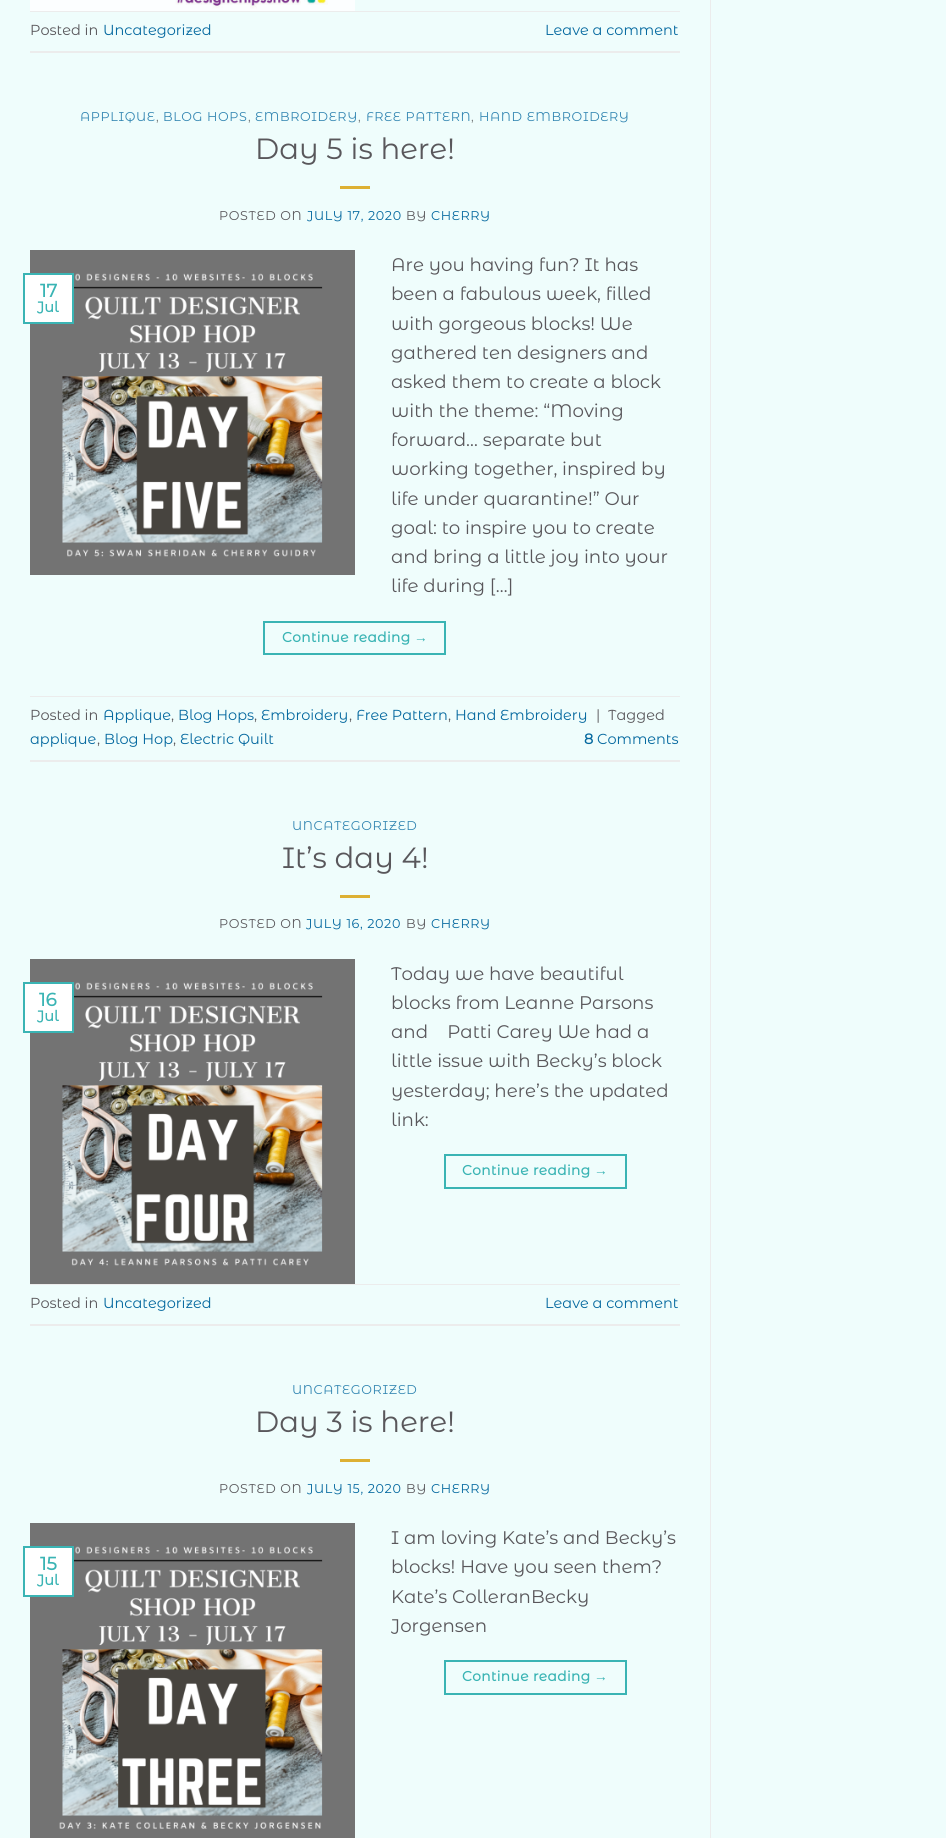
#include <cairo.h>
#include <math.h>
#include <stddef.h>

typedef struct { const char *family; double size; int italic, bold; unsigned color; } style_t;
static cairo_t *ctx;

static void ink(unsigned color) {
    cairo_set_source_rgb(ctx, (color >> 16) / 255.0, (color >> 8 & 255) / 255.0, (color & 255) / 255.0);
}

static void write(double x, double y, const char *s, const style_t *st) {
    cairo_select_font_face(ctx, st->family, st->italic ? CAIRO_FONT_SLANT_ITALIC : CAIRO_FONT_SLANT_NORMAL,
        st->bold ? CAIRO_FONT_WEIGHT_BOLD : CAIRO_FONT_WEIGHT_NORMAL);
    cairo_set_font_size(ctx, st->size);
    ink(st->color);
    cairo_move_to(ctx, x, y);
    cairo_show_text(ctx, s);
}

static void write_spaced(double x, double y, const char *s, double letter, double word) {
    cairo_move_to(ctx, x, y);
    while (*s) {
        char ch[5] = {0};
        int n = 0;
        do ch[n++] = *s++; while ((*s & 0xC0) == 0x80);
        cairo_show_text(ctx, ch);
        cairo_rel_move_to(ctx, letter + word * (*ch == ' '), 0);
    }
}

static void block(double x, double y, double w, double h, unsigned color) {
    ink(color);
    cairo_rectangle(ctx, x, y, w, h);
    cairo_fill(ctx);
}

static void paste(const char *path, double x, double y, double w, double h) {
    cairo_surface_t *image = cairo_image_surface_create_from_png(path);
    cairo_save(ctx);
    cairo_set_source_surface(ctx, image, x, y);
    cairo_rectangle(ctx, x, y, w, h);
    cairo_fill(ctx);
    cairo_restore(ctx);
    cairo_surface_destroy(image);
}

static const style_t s1 = {"Montserrat Alternates", 14.5, 0, 0, 0x59575b};
static const style_t s2 = {"Montserrat Alternates", 14.5, 0, 0, 0x04689f};
static const style_t s3 = {"Montserrat Alternates", 29.25, 0, 0, 0x59575b};
static const style_t s4 = {"Montserrat Alternates", 18.25, 0, 1, 0x3ab4b4};
static const style_t s5 = {"Montserrat Alternates", 14.5, 0, 1, 0x3ab4b4};
static const style_t s6 = {"Montserrat Alternates", 18.25, 0, 0, 0x59575b};
static const style_t s7 = {"Montserrat Alternates", 14.5, 0, 1, 0x04689f};

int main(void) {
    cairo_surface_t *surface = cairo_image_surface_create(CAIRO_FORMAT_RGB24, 946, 1838);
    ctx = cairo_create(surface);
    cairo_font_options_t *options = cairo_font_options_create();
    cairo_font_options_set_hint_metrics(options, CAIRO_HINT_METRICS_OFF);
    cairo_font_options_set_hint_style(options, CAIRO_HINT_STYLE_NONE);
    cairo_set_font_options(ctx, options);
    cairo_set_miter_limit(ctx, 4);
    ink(0xeffdfc);
    cairo_paint(ctx);
    paste("pic1.png", 30, 0, 325, 11);
    block(30, 11, 650, 1, 0xececec);
    block(30, 51, 650, 2, 0xececec);
    write(30, 35, "Posted in", &s1);
    write(103, 35, "Uncategorized", &s2);
    write(545, 35, "Leave a comment", &s2);
    cairo_set_font_size(ctx, 12.75);
    ink(0x3386b2);
    write_spaced(80, 121, "APPLIQUE", 0.6, 0);
    ink(0x767a7b);
    write_spaced(156, 121, ",", 0.6, 0);
    ink(0x3386b2);
    write_spaced(163, 121, "BLOG HOPS", 0.6, 0);
    ink(0x767a7b);
    write_spaced(248, 121, ",", 0.6, 0);
    ink(0x3386b2);
    write_spaced(255, 121, "EMBROIDERY", 0.6, 0);
    ink(0x767a7b);
    write_spaced(358, 121, ",", 0.6, 0);
    ink(0x3386b2);
    write_spaced(366, 121, "FREE PATTERN", 0.6, 0);
    ink(0x767a7b);
    write_spaced(471, 121, ",", 0.6, 0);
    ink(0x3386b2);
    write_spaced(479, 121, "HAND EMBROIDERY", 0.6, 0);
    write(255, 159, "Day 5 is here!", &s3);
    block(340, 186, 30, 3, 0xddb033);
    cairo_set_font_size(ctx, 12.75);
    ink(0x59575b);
    write_spaced(219, 220, "POSTED ON", 0.6, 0);
    ink(0x04689f);
    write_spaced(307, 220, "JULY 17, 2020", 0.6, 0);
    ink(0x59575b);
    write_spaced(406, 220, "BY", 0.6, 0);
    ink(0x04689f);
    write_spaced(431, 220, "CHERRY", 0.6, 0);
    paste("pic2.png", 30, 250, 325, 325);
    ink(0xffffff);
    cairo_rectangle(ctx, 24, 274, 49, 49);
    cairo_fill_preserve(ctx);
    ink(0x3ab4b4);
    cairo_stroke(ctx);
    write(40, 297, "17", &s4);
    write(37, 312, "Jul", &s5);
    write(391, 271, "Are you having fun? It has", &s6);
    write(391, 300, "been a fabulous week, filled", &s6);
    write(391, 330, "with gorgeous blocks! We", &s6);
    write(391, 359, "gathered ten designers and", &s6);
    write(391, 388, "asked them to create a block", &s6);
    write(391, 417, "with the theme: “Moving", &s6);
    write(391, 446, "forward… separate but", &s6);
    write(391, 475, "working together, inspired by", &s6);
    write(391, 505, "life under quarantine!” Our", &s6);
    write(391, 534, "goal: to inspire you to create", &s6);
    write(391, 563, "and bring a little joy into your", &s6);
    write(391, 592, "life during […]", &s6);
    cairo_rectangle(ctx, 264, 622, 181, 32);
    ink(0x3ab4b4);
    cairo_stroke(ctx);
    cairo_select_font_face(ctx, "Montserrat Alternates", CAIRO_FONT_SLANT_NORMAL, CAIRO_FONT_WEIGHT_BOLD);
    cairo_set_font_size(ctx, 13.75);
    write_spaced(282, 642, "Continue reading", 0.4, 0);
    cairo_select_font_face(ctx, "Liberation Sans", CAIRO_FONT_SLANT_NORMAL, CAIRO_FONT_WEIGHT_BOLD);
    write_spaced(414, 642, "→", 0.4, 0);
    block(30, 696, 650, 1, 0xececec);
    block(30, 760, 650, 2, 0xececec);
    write(30, 720, "Posted in", &s1);
    write(103, 720, "Applique", &s2);
    write(171, 720, ",", &s1);
    write(178, 720, "Blog Hops", &s2);
    write(254, 720, ",", &s1);
    write(261, 720, "Embroidery", &s2);
    write(349, 720, ",", &s1);
    write(356, 720, "Free Pattern", &s2);
    write(448, 720, ",", &s1);
    write(455, 720, "Hand Embroidery", &s2);
    write(596, 720, "|", &s1);
    write(608, 720, "Tagged", &s1);
    write(30, 744, "applique", &s2);
    write(97, 744, ",", &s1);
    write(104, 744, "Blog Hop", &s2);
    write(173, 744, ",", &s1);
    write(180, 744, "Electric Quilt", &s2);
    write(584, 744, "8", &s7);
    write(597, 744, "Comments", &s2);
    cairo_set_font_size(ctx, 12.75);
    ink(0x3386b2);
    write_spaced(292, 830, "UNCATEGORIZED", 0.6, 0);
    write(282, 868, "It’s day 4!", &s3);
    block(340, 895, 30, 3, 0xddb033);
    cairo_set_font_size(ctx, 12.75);
    ink(0x59575b);
    write_spaced(219, 928, "POSTED ON", 0.6, 0);
    ink(0x04689f);
    write_spaced(306, 928, "JULY 16, 2020", 0.6, 0);
    ink(0x59575b);
    write_spaced(406, 928, "BY", 0.6, 0);
    ink(0x04689f);
    write_spaced(431, 928, "CHERRY", 0.6, 0);
    paste("pic3.png", 30, 959, 325, 325);
    ink(0xffffff);
    cairo_rectangle(ctx, 24, 983, 49, 49);
    cairo_fill_preserve(ctx);
    ink(0x3ab4b4);
    cairo_stroke(ctx);
    write(39, 1006, "16", &s4);
    write(37, 1021, "Jul", &s5);
    write(391, 980, "Today we have beautiful", &s6);
    write(391, 1009, "blocks from Leanne Parsons", &s6);
    write(391, 1038, "and    Patti Carey We had a", &s6);
    write(391, 1067, "little issue with Becky’s block", &s6);
    write(391, 1097, "yesterday; here’s the updated", &s6);
    write(391, 1126, "link:", &s6);
    cairo_rectangle(ctx, 445, 1155, 181, 33);
    ink(0x3ab4b4);
    cairo_stroke(ctx);
    cairo_select_font_face(ctx, "Montserrat Alternates", CAIRO_FONT_SLANT_NORMAL, CAIRO_FONT_WEIGHT_BOLD);
    cairo_set_font_size(ctx, 13.75);
    write_spaced(462, 1175, "Continue reading", 0.4, 0);
    cairo_select_font_face(ctx, "Liberation Sans", CAIRO_FONT_SLANT_NORMAL, CAIRO_FONT_WEIGHT_BOLD);
    write_spaced(594, 1175, "→", 0.4, 0);
    block(30, 1284, 650, 1, 0xececec);
    block(30, 1324, 650, 2, 0xececec);
    write(30, 1308, "Posted in", &s1);
    write(103, 1308, "Uncategorized", &s2);
    write(545, 1308, "Leave a comment", &s2);
    cairo_set_font_size(ctx, 12.75);
    ink(0x3386b2);
    write_spaced(292, 1394, "UNCATEGORIZED", 0.6, 0);
    write(255, 1432, "Day 3 is here!", &s3);
    block(340, 1459, 30, 3, 0xddb033);
    cairo_set_font_size(ctx, 12.75);
    ink(0x59575b);
    write_spaced(219, 1493, "POSTED ON", 0.6, 0);
    ink(0x04689f);
    write_spaced(307, 1493, "JULY 15, 2020", 0.6, 0);
    ink(0x59575b);
    write_spaced(406, 1493, "BY", 0.6, 0);
    ink(0x04689f);
    write_spaced(431, 1493, "CHERRY", 0.6, 0);
    paste("pic4.png", 30, 1523, 325, 315);
    ink(0xffffff);
    cairo_rectangle(ctx, 24, 1547, 49, 49);
    cairo_fill_preserve(ctx);
    ink(0x3ab4b4);
    cairo_stroke(ctx);
    write(40, 1570, "15", &s4);
    write(37, 1585, "Jul", &s5);
    write(391, 1544, "I am loving Kate’s and Becky’s", &s6);
    write(391, 1573, "blocks! Have you seen them?", &s6);
    write(391, 1603, "Kate’s ColleranBecky", &s6);
    write(391, 1632, "Jorgensen", &s6);
    cairo_rectangle(ctx, 445, 1661, 181, 33);
    ink(0x3ab4b4);
    cairo_stroke(ctx);
    cairo_select_font_face(ctx, "Montserrat Alternates", CAIRO_FONT_SLANT_NORMAL, CAIRO_FONT_WEIGHT_BOLD);
    cairo_set_font_size(ctx, 13.75);
    write_spaced(462, 1681, "Continue reading", 0.4, 0);
    cairo_select_font_face(ctx, "Liberation Sans", CAIRO_FONT_SLANT_NORMAL, CAIRO_FONT_WEIGHT_BOLD);
    write_spaced(594, 1681, "→", 0.4, 0);
    block(710, 0, 1, 1838, 0xececec);
    cairo_surface_write_to_png(surface, "screenshot.png");
    cairo_font_options_destroy(options);
    cairo_destroy(ctx);
    cairo_surface_destroy(surface);
    return 0;
}
